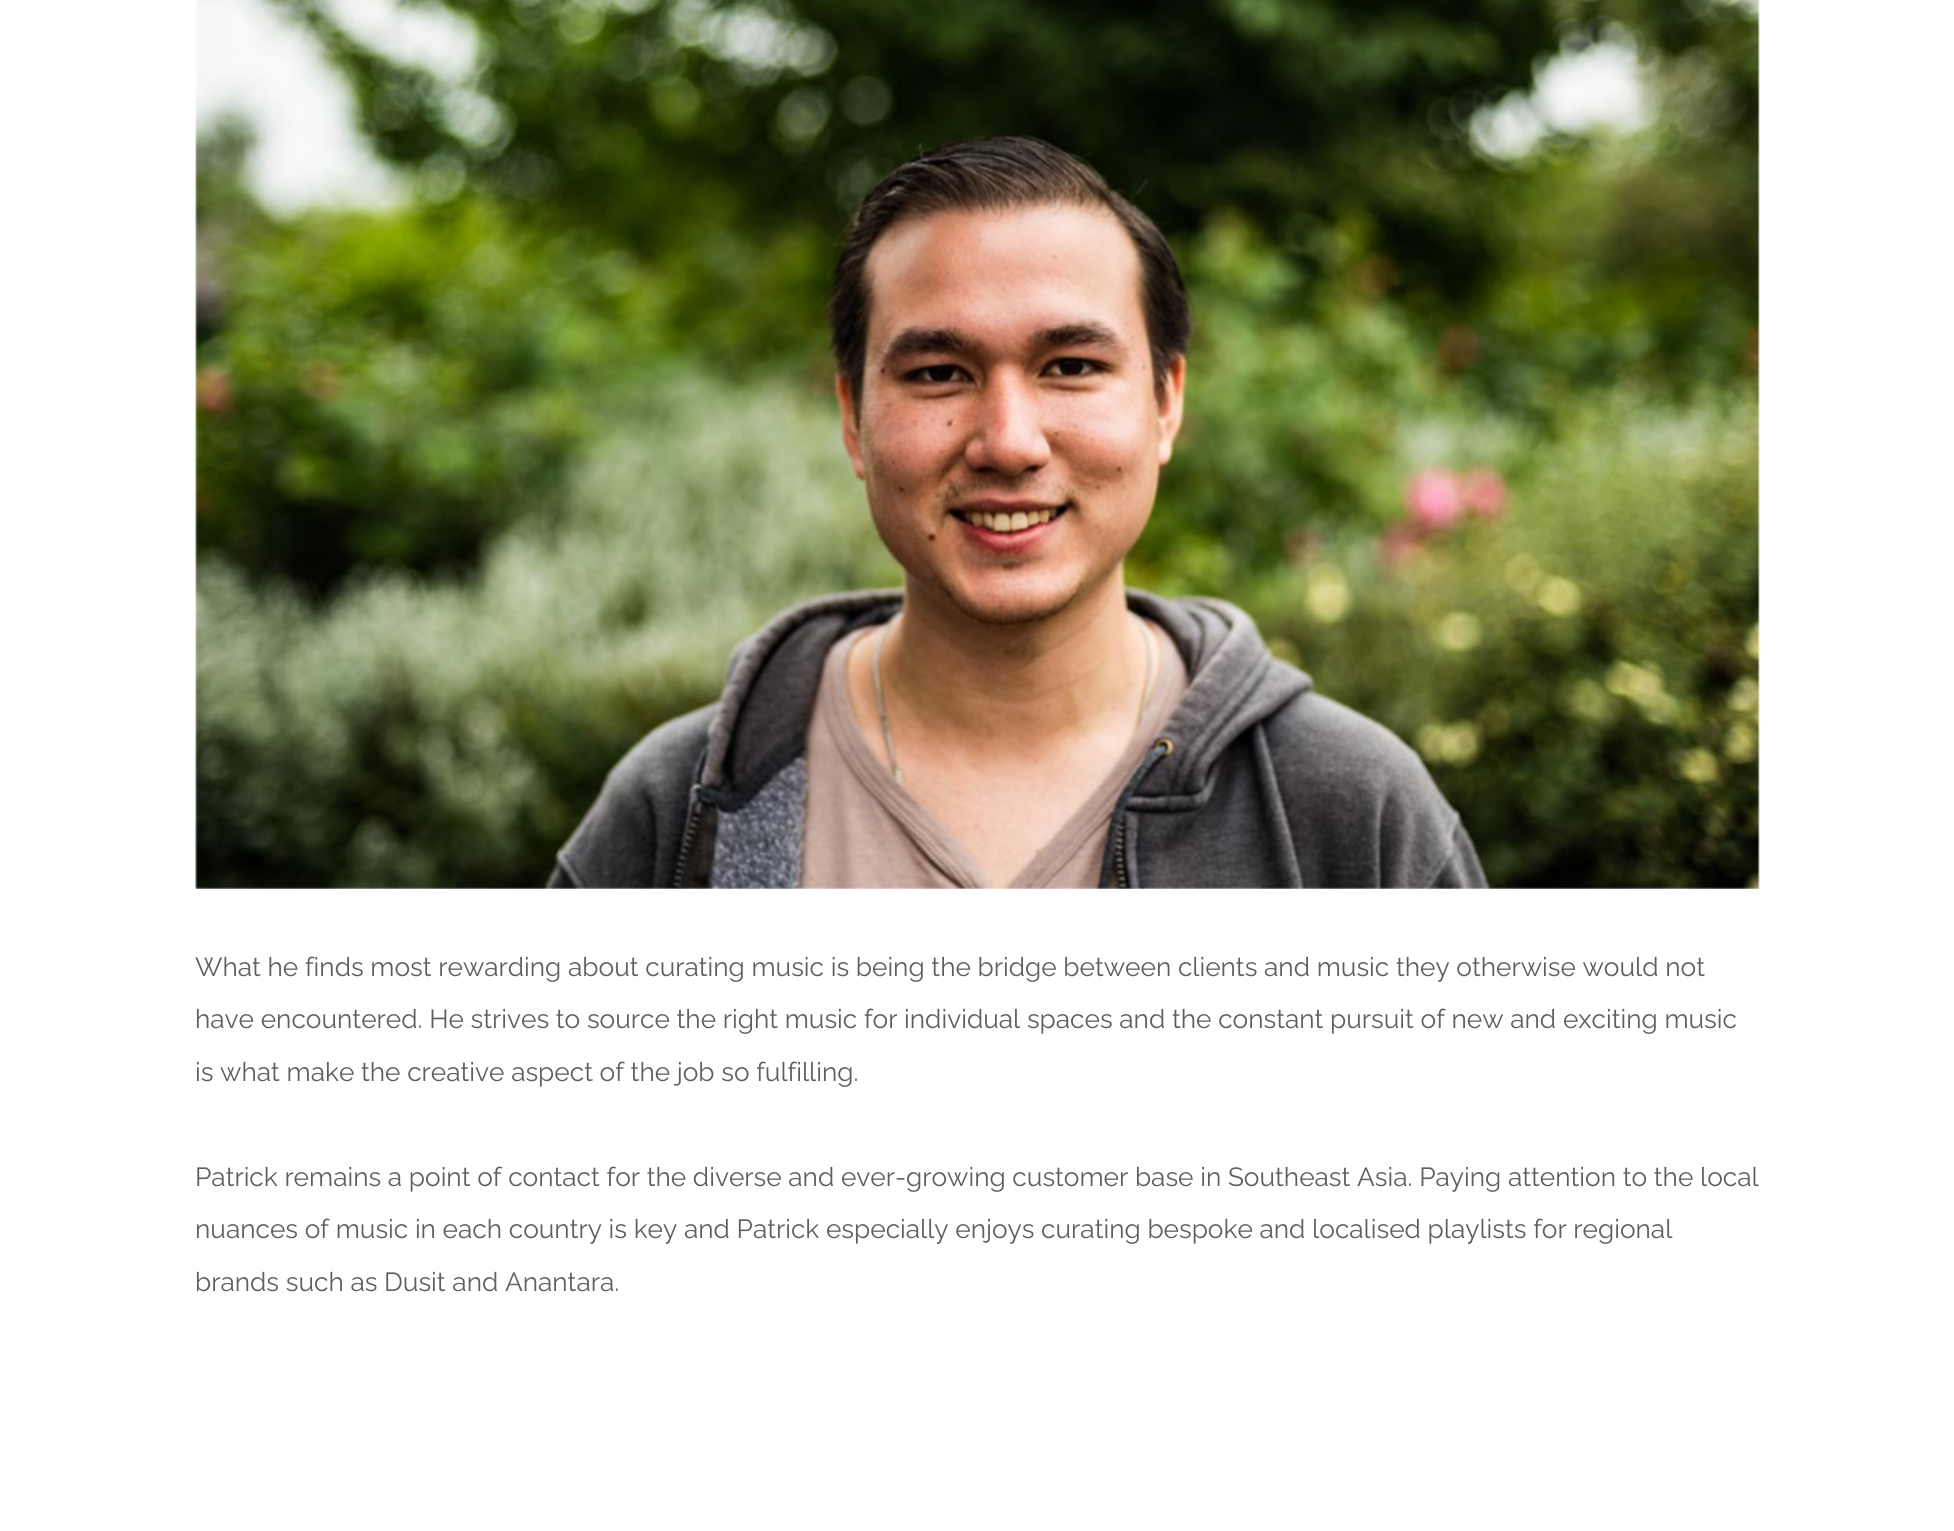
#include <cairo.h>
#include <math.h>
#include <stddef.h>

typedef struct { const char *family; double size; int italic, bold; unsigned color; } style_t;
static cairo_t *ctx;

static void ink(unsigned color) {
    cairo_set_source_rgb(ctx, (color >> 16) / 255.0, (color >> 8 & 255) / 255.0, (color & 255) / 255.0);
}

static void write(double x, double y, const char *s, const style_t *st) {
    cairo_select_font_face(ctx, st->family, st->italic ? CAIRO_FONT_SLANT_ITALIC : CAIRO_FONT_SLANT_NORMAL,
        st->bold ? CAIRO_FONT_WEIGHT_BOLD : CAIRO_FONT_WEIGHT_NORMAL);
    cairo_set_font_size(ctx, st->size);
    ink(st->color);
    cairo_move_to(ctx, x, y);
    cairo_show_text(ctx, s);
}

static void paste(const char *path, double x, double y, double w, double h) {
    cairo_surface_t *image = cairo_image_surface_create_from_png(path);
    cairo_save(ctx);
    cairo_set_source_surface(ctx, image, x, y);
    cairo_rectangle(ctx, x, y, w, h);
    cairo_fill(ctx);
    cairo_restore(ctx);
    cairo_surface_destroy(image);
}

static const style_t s1 = {"Raleway", 26.25, 0, 0, 0x5f5f5f};

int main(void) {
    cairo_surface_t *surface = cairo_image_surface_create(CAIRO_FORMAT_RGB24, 1954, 1531);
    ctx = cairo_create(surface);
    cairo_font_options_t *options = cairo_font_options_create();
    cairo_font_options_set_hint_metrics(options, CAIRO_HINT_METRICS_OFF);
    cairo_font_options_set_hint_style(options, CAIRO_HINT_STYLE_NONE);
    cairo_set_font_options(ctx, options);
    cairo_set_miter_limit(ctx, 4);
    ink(0xffffff);
    cairo_paint(ctx);
    paste("pic1.png", 195, 0, 1565, 889);
    write(195, 976, "What he finds most rewarding about curating music is being the bridge between clients and music they otherwise would not", &s1);
    write(195, 1028, "have encountered. He strives to source the right music for individual spaces and the constant pursuit of new and exciting music", &s1);
    write(195, 1081, "is what make the creative aspect of the job so fulfilling.", &s1);
    write(195, 1186, "Patrick remains a point of contact for the diverse and ever-growing customer base in Southeast Asia. Paying attention to the local", &s1);
    write(195, 1238, "nuances of music in each country is key and Patrick especially enjoys curating bespoke and localised playlists for regional", &s1);
    write(195, 1291, "brands such as Dusit and Anantara.", &s1);
    cairo_surface_write_to_png(surface, "screenshot.png");
    cairo_font_options_destroy(options);
    cairo_destroy(ctx);
    cairo_surface_destroy(surface);
    return 0;
}
